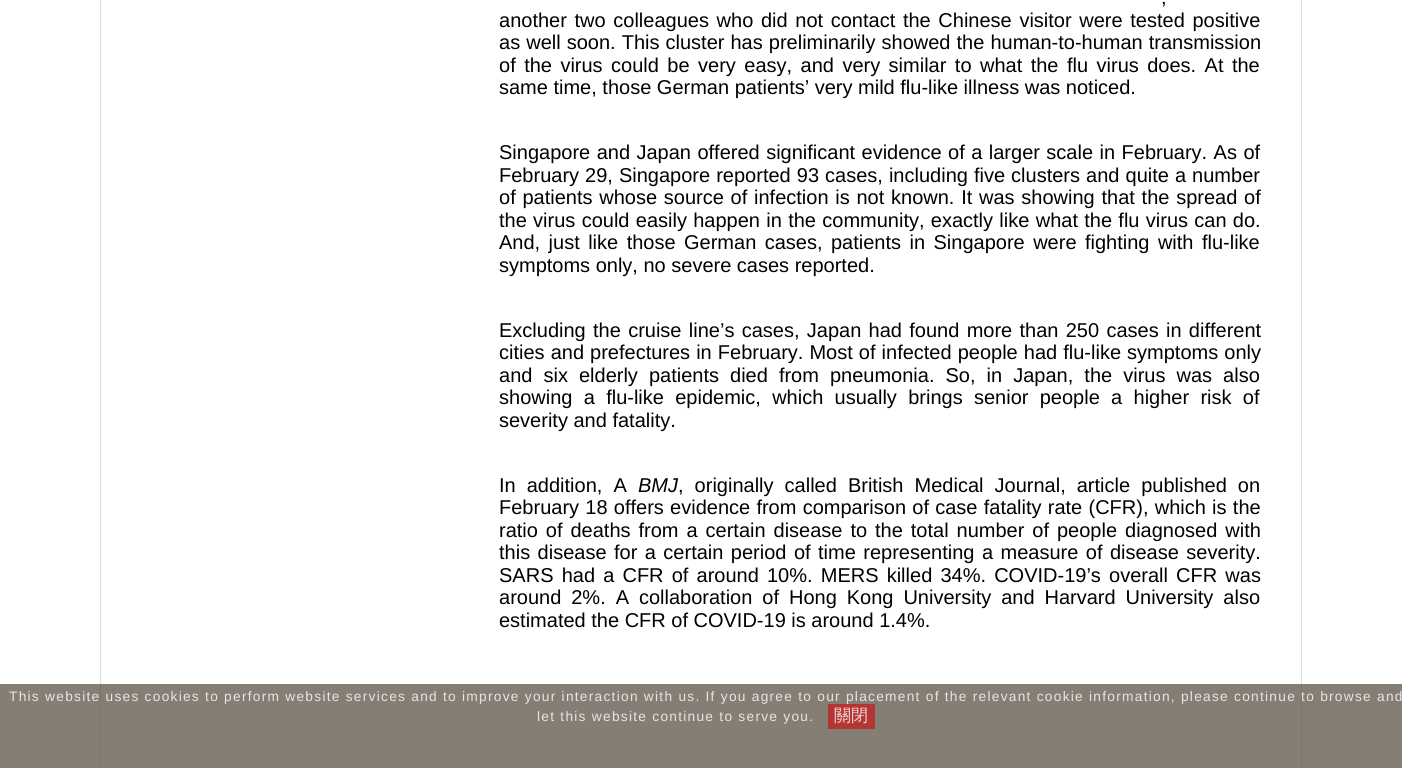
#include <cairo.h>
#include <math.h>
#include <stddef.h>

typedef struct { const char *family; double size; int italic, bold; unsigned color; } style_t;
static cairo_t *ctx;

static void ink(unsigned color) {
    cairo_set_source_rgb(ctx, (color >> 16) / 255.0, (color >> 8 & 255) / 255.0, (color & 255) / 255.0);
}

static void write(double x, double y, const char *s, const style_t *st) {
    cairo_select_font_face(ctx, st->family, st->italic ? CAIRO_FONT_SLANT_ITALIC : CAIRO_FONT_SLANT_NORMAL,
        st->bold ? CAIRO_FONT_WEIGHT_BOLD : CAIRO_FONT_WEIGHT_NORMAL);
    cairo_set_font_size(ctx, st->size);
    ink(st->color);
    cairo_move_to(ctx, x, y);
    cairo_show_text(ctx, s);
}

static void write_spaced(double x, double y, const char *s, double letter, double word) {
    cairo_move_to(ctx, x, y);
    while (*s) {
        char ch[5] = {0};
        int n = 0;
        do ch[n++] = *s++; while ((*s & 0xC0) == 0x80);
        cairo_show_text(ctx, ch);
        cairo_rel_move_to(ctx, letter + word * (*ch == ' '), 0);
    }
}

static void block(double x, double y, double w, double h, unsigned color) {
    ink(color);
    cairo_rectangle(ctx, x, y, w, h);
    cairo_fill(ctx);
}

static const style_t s1 = {"Liberation Sans", 20, 0, 0, 0x000000};
static const style_t s2 = {"Liberation Sans", 20, 1, 0, 0x000000};
static const style_t s3 = {"WenQuanYi Zen Hei Medium", 17, 0, 0, 0xf0d7d6};

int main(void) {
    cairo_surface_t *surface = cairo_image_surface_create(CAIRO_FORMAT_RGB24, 1402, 768);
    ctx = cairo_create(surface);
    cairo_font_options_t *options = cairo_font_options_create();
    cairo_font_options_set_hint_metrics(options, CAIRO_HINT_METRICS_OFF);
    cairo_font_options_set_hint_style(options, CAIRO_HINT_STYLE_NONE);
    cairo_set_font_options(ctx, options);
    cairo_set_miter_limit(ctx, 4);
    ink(0xffffff);
    cairo_paint(ctx);
    block(1301, 0, 1, 768, 0xdbe5c6);
    block(100, 0, 1, 768, 0xdbe5c6);
    cairo_select_font_face(ctx, "Liberation Sans", CAIRO_FONT_SLANT_NORMAL, CAIRO_FONT_WEIGHT_NORMAL);
    cairo_set_font_size(ctx, 20);
    ink(0x000000);
    write_spaced(1161, 4, ",", 0, 5);
    write_spaced(499, 27, "another two colleagues who did not contact the Chinese visitor were tested positive", 0, 2.1);
    write_spaced(499, 49, "as well soon. This cluster has preliminarily showed the human-to-human transmission", 0, 0.5);
    write_spaced(499, 72, "of the virus could be very easy, and very similar to what the flu virus does. At the", 0, 2.9);
    write(499, 94, "same time, those German patients’ very mild flu-like illness was noticed.", &s1);
    write_spaced(499, 159, "Singapore and Japan offered significant evidence of a larger scale in February. As of", 0, 0.9);
    write_spaced(499, 182, "February 29, Singapore reported 93 cases, including five clusters and quite a number", 0, 0.5);
    write_spaced(499, 204, "of patients whose source of infection is not known. It was showing that the spread of", 0, 1.2);
    write_spaced(499, 227, "the virus could easily happen in the community, exactly like what the flu virus can do.", 0, 0.75);
    write_spaced(499, 249, "And, just like those German cases, patients in Singapore were fighting with flu-like", 0, 2.9);
    write(499, 272, "symptoms only, no severe cases reported.", &s1);
    write_spaced(499, 337, "Excluding the cruise line’s cases, Japan had found more than 250 cases in different", 0, 1.75);
    write_spaced(499, 359, "cities and prefectures in February. Most of infected people had flu-like symptoms only", 0, 0.5);
    write_spaced(499, 382, "and six elderly patients died from pneumonia. So, in Japan, the virus was also", 0, 5.5);
    write_spaced(499, 404, "showing a flu-like epidemic, which usually brings senior people a higher risk of", 0, 5.75);
    write(499, 427, "severity and fatality.", &s1);
    write_spaced(499, 492, "In addition, A", 0, 5.5);
    write(638, 492, "BMJ", &s2);
    cairo_select_font_face(ctx, "Liberation Sans", CAIRO_FONT_SLANT_NORMAL, CAIRO_FONT_WEIGHT_NORMAL);
    write_spaced(678, 492, ", originally called British Medical Journal, article published on", 0, 5.5);
    write_spaced(499, 514, "February 18 offers evidence from comparison of case fatality rate (CFR), which is the", 0, 0.7);
    write_spaced(499, 537, "ratio of deaths from a certain disease to the total number of people diagnosed with", 0, 2.4);
    write_spaced(499, 559, "this disease for a certain period of time representing a measure of disease severity.", 0, 1.9);
    write_spaced(499, 582, "SARS had a CFR of around 10%. MERS killed 34%. COVID-19’s overall CFR was", 0, 2.6);
    write_spaced(499, 604, "around 2%. A collaboration of Hong Kong University and Harvard University also", 0, 4.4);
    write(499, 627, "estimated the CFR of COVID-19 is around 1.4%.", &s1);
    cairo_set_source_rgba(ctx, 0.4, 0.369, 0.325, 0.8);
    cairo_rectangle(ctx, 0, 684, 1402, 84);
    cairo_fill(ctx);
    cairo_set_font_size(ctx, 13.75);
    ink(0xe6e5e3);
    write_spaced(9, 701, "This website uses cookies to perform website services and to improve your interaction with us. If you agree to our placement of the relevant cookie information, please continue to browse and", 1.25, 0);
    write_spaced(537, 721, "let this website continue to serve you.", 1.25, 0);
    cairo_set_source_rgba(ctx, 0.753, 0.145, 0.145, 0.8);
    cairo_rectangle(ctx, 828, 704, 47, 25);
    cairo_fill(ctx);
    write(834, 721, "關閉", &s3);
    cairo_surface_write_to_png(surface, "screenshot.png");
    cairo_font_options_destroy(options);
    cairo_destroy(ctx);
    cairo_surface_destroy(surface);
    return 0;
}
